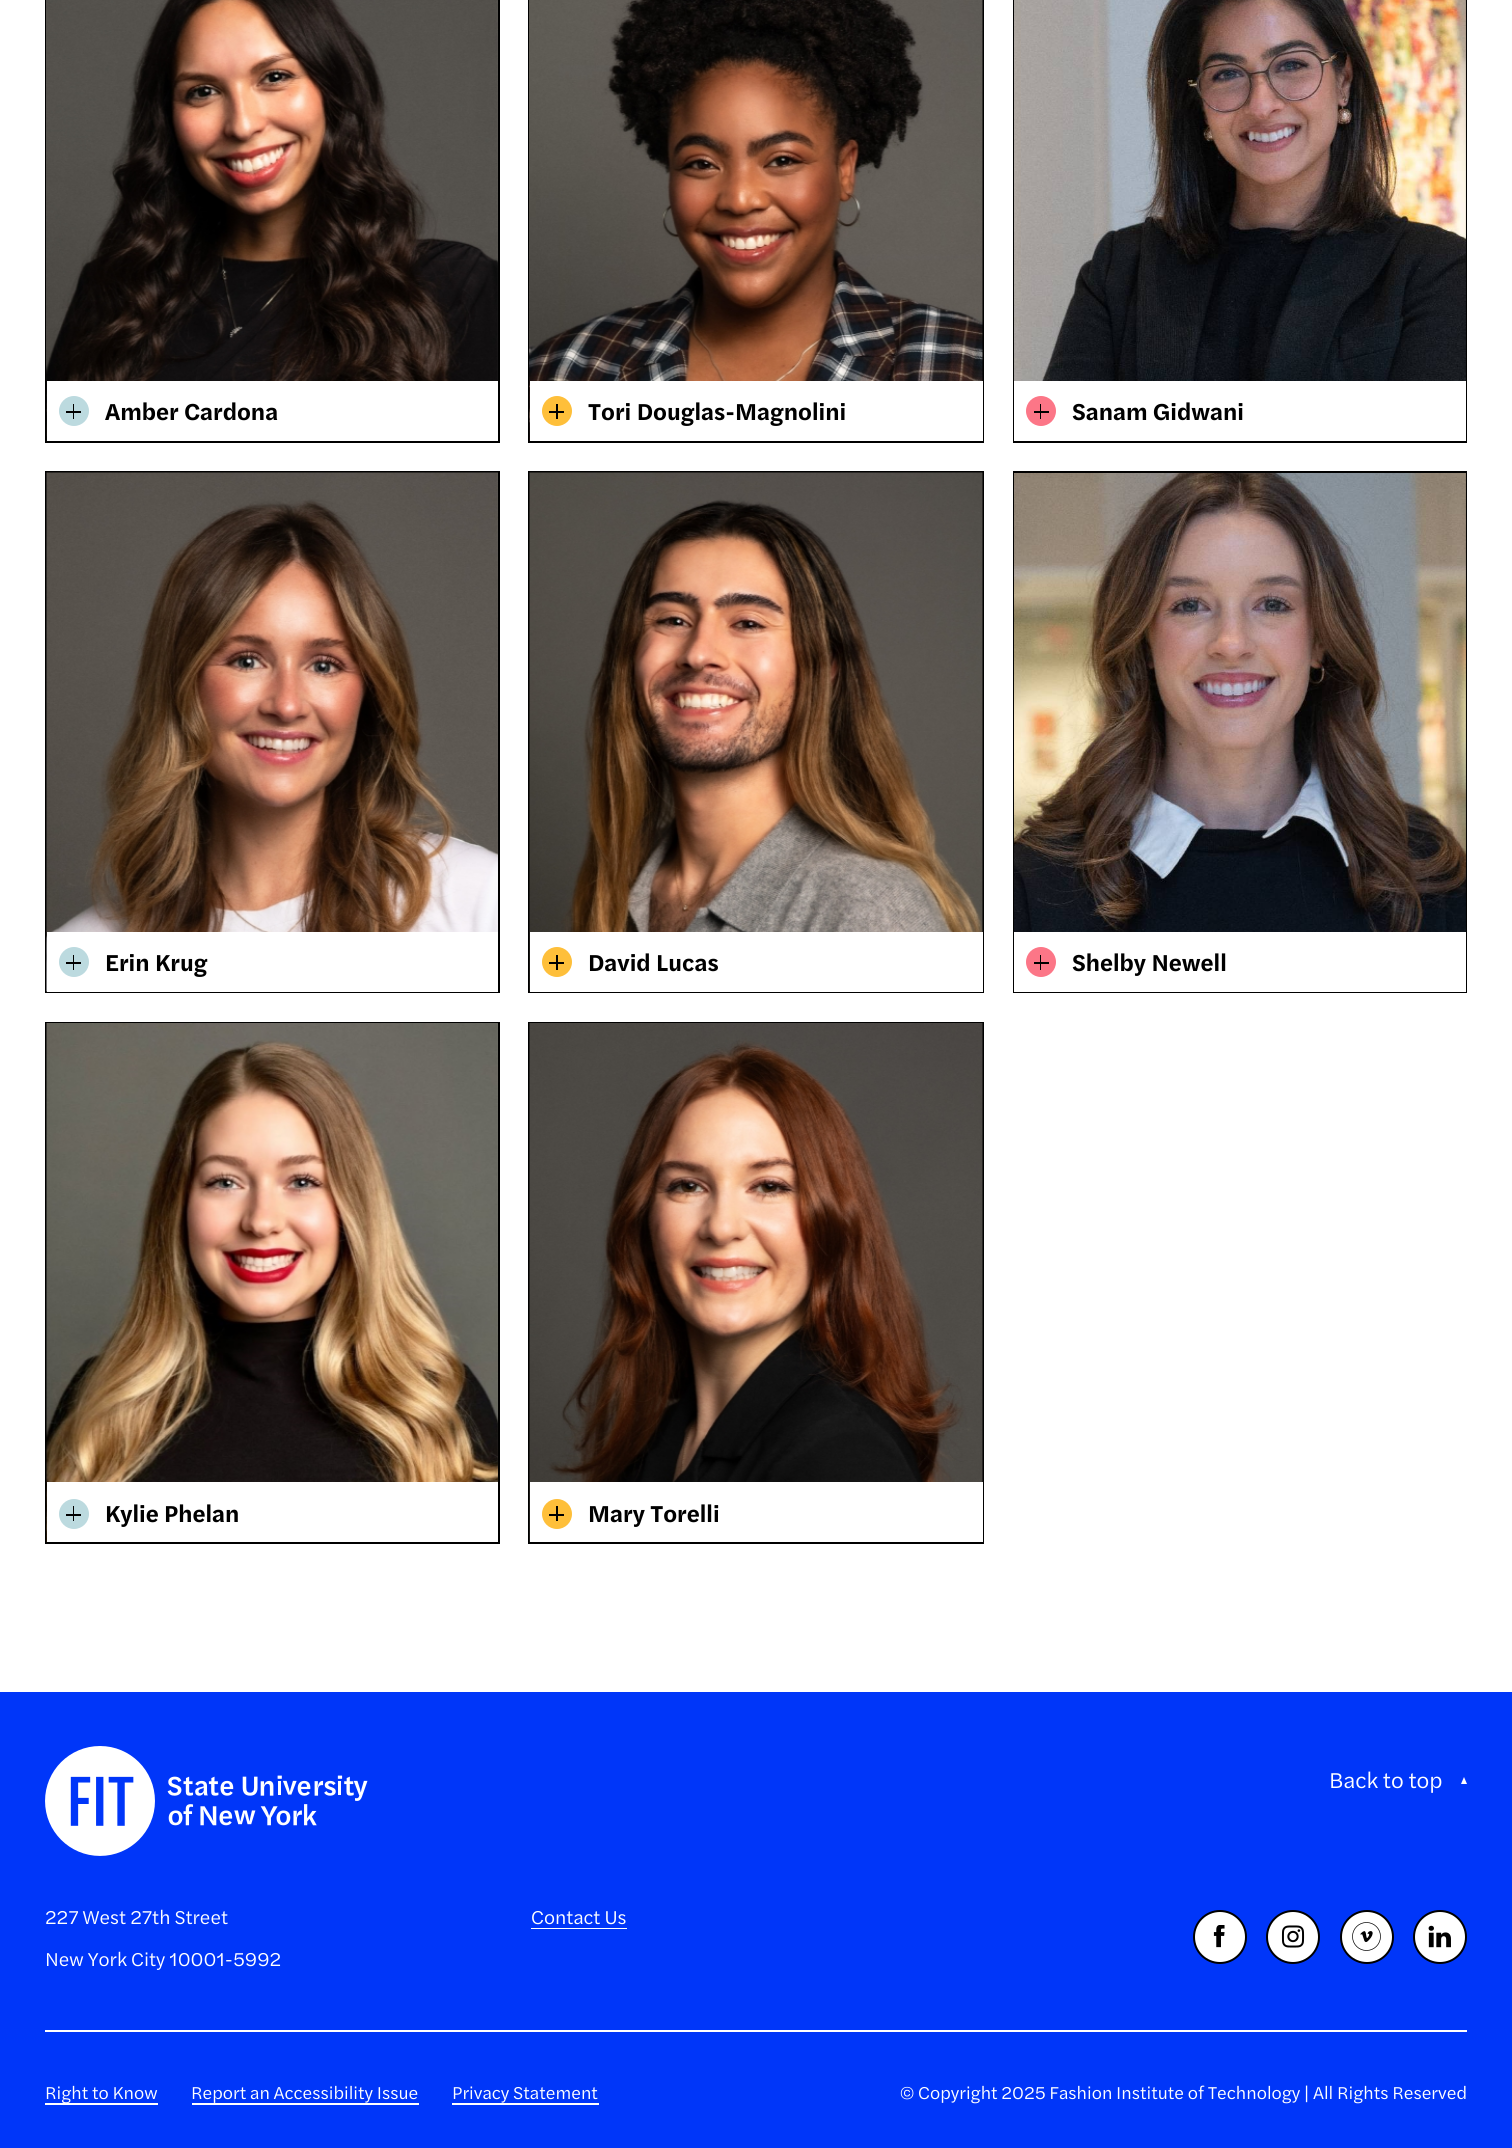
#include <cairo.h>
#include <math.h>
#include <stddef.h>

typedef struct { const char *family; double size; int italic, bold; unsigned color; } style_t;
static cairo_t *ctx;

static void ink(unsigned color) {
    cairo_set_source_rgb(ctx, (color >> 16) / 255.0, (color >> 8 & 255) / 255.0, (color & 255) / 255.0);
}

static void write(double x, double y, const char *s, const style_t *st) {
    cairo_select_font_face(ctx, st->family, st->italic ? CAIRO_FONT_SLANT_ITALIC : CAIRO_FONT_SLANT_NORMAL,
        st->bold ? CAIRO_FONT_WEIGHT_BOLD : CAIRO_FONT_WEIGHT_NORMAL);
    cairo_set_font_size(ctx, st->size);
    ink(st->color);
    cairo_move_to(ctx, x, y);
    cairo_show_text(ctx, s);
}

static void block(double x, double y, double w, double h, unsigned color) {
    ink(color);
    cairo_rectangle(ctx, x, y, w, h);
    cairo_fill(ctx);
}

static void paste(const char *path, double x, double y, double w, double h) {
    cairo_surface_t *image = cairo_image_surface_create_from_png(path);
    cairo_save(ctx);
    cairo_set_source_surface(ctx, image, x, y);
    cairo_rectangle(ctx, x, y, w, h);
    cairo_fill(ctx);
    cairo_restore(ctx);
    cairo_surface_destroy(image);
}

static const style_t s1 = {"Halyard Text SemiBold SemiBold", 24, 0, 0, 0x000000};
static const style_t s2 = {"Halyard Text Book", 22.5, 0, 0, 0xffffff};
static const style_t s3 = {"Halyard Text Book", 19.5, 0, 0, 0xffffff};
static const style_t s4 = {"Halyard Text Book", 18, 0, 0, 0xffffff};

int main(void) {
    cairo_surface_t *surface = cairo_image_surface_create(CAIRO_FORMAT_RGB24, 1512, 2148);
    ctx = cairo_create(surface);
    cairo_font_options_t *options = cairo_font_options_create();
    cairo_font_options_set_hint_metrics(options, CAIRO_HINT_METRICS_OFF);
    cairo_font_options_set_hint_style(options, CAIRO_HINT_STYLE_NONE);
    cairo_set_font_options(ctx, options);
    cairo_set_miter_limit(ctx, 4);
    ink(0xffffff);
    cairo_paint(ctx);
    cairo_rectangle(ctx, 46, -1, 453, 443);
    ink(0x000000);
    cairo_stroke(ctx);
    paste("pic1.png", 46, 0, 452, 441);
    block(47, 381, 451, 60, 0xffffff);
    ink(0xbcdadf);
    cairo_arc(ctx, 74, 411, 15, 0, 2 * M_PI);
    cairo_fill(ctx);
    block(66, 411, 15, 2, 0x000000);
    block(73, 404, 1, 15, 0x000000);
    write(105, 420, "Amber Cardona", &s1);
    cairo_rectangle(ctx, 529, -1, 454, 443);
    cairo_stroke(ctx);
    paste("pic2.png", 529, 0, 454, 441);
    block(530, 381, 453, 60, 0xffffff);
    ink(0xfebf3a);
    cairo_arc(ctx, 557, 411, 15, 0, 2 * M_PI);
    cairo_fill(ctx);
    block(549, 411, 15, 2, 0x000000);
    block(556, 404, 2, 15, 0x000000);
    write(588, 420, "Tori Douglas-Magnolini", &s1);
    cairo_rectangle(ctx, 1014, -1, 452, 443);
    cairo_stroke(ctx);
    paste("pic3.png", 1014, 0, 452, 381);
    block(1014, 381, 452, 60, 0xffffff);
    ink(0xfc7687);
    cairo_arc(ctx, 1041, 411, 15, 0, 2 * M_PI);
    cairo_fill(ctx);
    block(1034, 411, 15, 2, 0x000000);
    block(1040, 404, 1, 15, 0x000000);
    write(1072, 420, "Sanam Gidwani", &s1);
    cairo_rectangle(ctx, 46, 472, 453, 520);
    cairo_stroke(ctx);
    paste("pic4.png", 46, 472, 452, 520);
    block(47, 932, 451, 60, 0xffffff);
    ink(0xbcdadf);
    cairo_arc(ctx, 74, 962, 15, 0, 2 * M_PI);
    cairo_fill(ctx);
    block(66, 962, 15, 2, 0x000000);
    block(73, 955, 1, 15, 0x000000);
    write(105, 971, "Erin Krug", &s1);
    cairo_rectangle(ctx, 529, 472, 454, 520);
    cairo_stroke(ctx);
    paste("pic5.png", 529, 472, 454, 520);
    block(530, 932, 453, 60, 0xffffff);
    ink(0xfebf3a);
    cairo_arc(ctx, 557, 962, 15, 0, 2 * M_PI);
    cairo_fill(ctx);
    block(549, 962, 15, 2, 0x000000);
    block(556, 955, 2, 15, 0x000000);
    write(588, 971, "David Lucas", &s1);
    cairo_rectangle(ctx, 1014, 472, 452, 520);
    cairo_stroke(ctx);
    paste("pic6.png", 1014, 473, 452, 459);
    block(1014, 932, 452, 60, 0xffffff);
    ink(0xfc7687);
    cairo_arc(ctx, 1041, 962, 15, 0, 2 * M_PI);
    cairo_fill(ctx);
    block(1034, 962, 15, 2, 0x000000);
    block(1040, 955, 1, 15, 0x000000);
    write(1072, 971, "Shelby Newell", &s1);
    cairo_rectangle(ctx, 46, 1023, 453, 520);
    cairo_stroke(ctx);
    paste("pic7.png", 46, 1023, 452, 519);
    block(47, 1482, 451, 60, 0xffffff);
    ink(0xbcdadf);
    cairo_arc(ctx, 74, 1514, 15, 0, 2 * M_PI);
    cairo_fill(ctx);
    block(66, 1514, 15, 2, 0x000000);
    block(73, 1506, 1, 15, 0x000000);
    write(105, 1522, "Kylie Phelan", &s1);
    cairo_rectangle(ctx, 529, 1023, 454, 520);
    cairo_stroke(ctx);
    paste("pic8.png", 529, 1023, 454, 519);
    block(530, 1482, 453, 60, 0xffffff);
    ink(0xfebf3a);
    cairo_arc(ctx, 557, 1514, 15, 0, 2 * M_PI);
    cairo_fill(ctx);
    block(549, 1514, 15, 2, 0x000000);
    block(556, 1506, 2, 15, 0x000000);
    write(588, 1522, "Mary Torelli", &s1);
    block(0, 1692, 1512, 456, 0x0036f9);
    write(1329, 1788, "Back to top", &s2);
    cairo_new_path(ctx);
    cairo_move_to(ctx, 1467, 1784);
    cairo_line_to(ctx, 1461, 1784);
    cairo_line_to(ctx, 1464, 1777);
    cairo_close_path(ctx);
    cairo_fill(ctx);
    block(45, 2030, 1422, 2, 0xffffff);
    paste("pic9.png", 45, 1746, 323, 110);
    write(45, 1924, "227 West 27th Street", &s3);
    write(45, 1966, "New York City 10001-5992", &s3);
    write(531, 1924, "Contact Us", &s3);
    block(531, 1928, 96, 1, 0xffffff);
    cairo_new_path(ctx);
    cairo_arc(ctx, 1220, 1937, 26, 0, 2 * M_PI);
    cairo_fill_preserve(ctx);
    ink(0x000000);
    cairo_stroke(ctx);
    paste("pic10.png", 1213, 1925, 12, 23);
    ink(0xffffff);
    cairo_arc(ctx, 1293, 1937, 26, 0, 2 * M_PI);
    cairo_fill_preserve(ctx);
    ink(0x000000);
    cairo_stroke(ctx);
    paste("pic11.png", 1281, 1925, 24, 23);
    ink(0xffffff);
    cairo_arc(ctx, 1367, 1937, 26, 0, 2 * M_PI);
    cairo_fill_preserve(ctx);
    ink(0x000000);
    cairo_stroke(ctx);
    paste("pic12.png", 1352, 1922, 29, 29);
    ink(0xffffff);
    cairo_arc(ctx, 1440, 1937, 26, 0, 2 * M_PI);
    cairo_fill_preserve(ctx);
    ink(0x000000);
    cairo_stroke(ctx);
    paste("pic13.png", 1428, 1925, 23, 23);
    block(45, 2103, 113, 2, 0xffffff);
    write(45, 2099, "Right to Know", &s4);
    write(191, 2099, "Report an Accessibility Issue", &s4);
    block(192, 2103, 227, 2, 0xffffff);
    write(452, 2099, "Privacy Statement", &s4);
    block(452, 2103, 147, 2, 0xffffff);
    write(900, 2099, "© Copyright 2025 Fashion Institute of Technology | All Rights Reserved", &s4);
    cairo_surface_write_to_png(surface, "screenshot.png");
    cairo_font_options_destroy(options);
    cairo_destroy(ctx);
    cairo_surface_destroy(surface);
    return 0;
}
